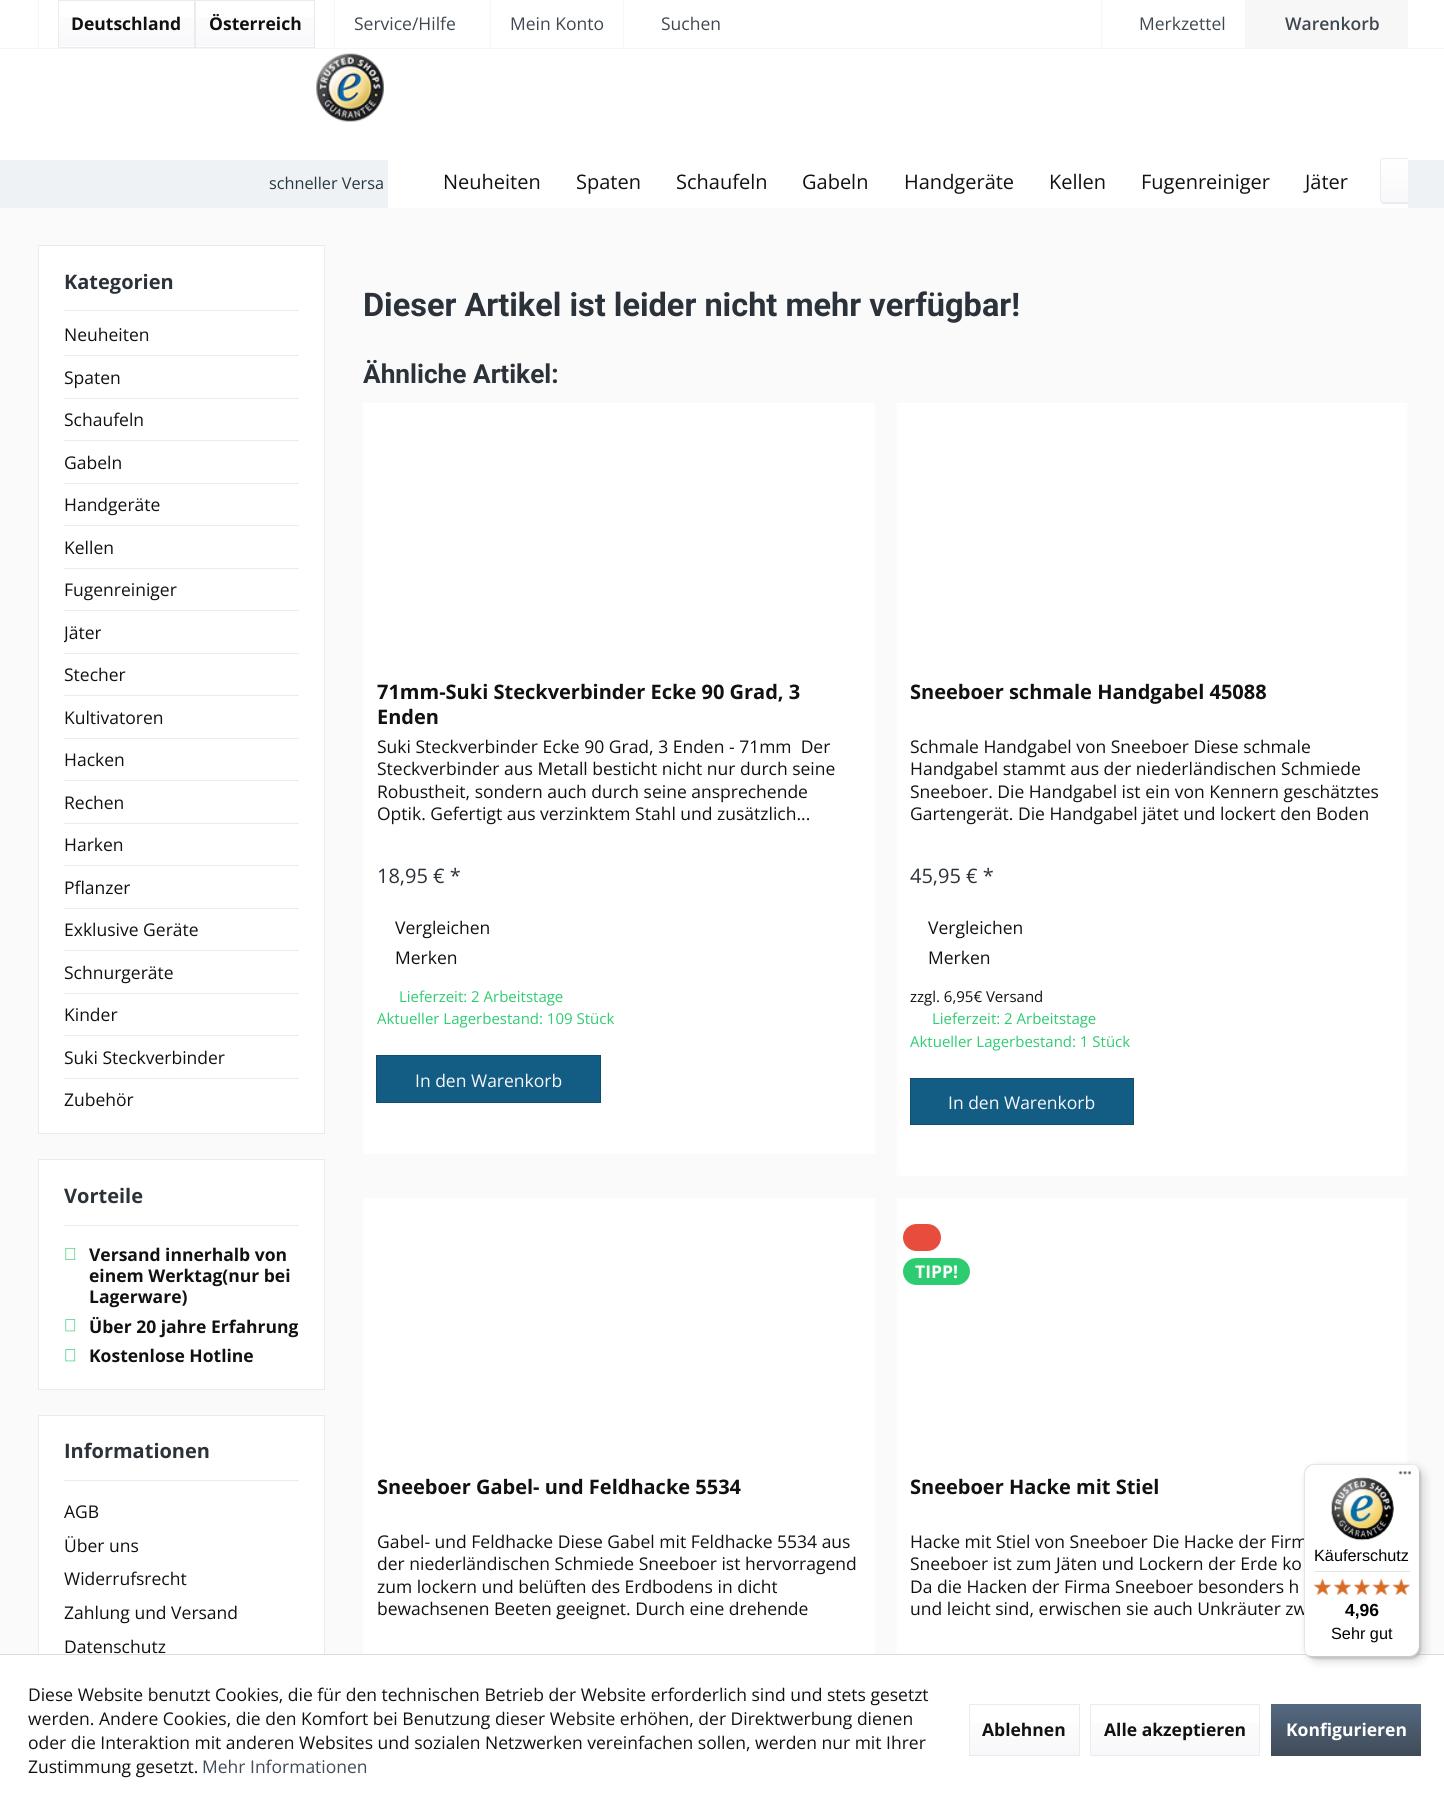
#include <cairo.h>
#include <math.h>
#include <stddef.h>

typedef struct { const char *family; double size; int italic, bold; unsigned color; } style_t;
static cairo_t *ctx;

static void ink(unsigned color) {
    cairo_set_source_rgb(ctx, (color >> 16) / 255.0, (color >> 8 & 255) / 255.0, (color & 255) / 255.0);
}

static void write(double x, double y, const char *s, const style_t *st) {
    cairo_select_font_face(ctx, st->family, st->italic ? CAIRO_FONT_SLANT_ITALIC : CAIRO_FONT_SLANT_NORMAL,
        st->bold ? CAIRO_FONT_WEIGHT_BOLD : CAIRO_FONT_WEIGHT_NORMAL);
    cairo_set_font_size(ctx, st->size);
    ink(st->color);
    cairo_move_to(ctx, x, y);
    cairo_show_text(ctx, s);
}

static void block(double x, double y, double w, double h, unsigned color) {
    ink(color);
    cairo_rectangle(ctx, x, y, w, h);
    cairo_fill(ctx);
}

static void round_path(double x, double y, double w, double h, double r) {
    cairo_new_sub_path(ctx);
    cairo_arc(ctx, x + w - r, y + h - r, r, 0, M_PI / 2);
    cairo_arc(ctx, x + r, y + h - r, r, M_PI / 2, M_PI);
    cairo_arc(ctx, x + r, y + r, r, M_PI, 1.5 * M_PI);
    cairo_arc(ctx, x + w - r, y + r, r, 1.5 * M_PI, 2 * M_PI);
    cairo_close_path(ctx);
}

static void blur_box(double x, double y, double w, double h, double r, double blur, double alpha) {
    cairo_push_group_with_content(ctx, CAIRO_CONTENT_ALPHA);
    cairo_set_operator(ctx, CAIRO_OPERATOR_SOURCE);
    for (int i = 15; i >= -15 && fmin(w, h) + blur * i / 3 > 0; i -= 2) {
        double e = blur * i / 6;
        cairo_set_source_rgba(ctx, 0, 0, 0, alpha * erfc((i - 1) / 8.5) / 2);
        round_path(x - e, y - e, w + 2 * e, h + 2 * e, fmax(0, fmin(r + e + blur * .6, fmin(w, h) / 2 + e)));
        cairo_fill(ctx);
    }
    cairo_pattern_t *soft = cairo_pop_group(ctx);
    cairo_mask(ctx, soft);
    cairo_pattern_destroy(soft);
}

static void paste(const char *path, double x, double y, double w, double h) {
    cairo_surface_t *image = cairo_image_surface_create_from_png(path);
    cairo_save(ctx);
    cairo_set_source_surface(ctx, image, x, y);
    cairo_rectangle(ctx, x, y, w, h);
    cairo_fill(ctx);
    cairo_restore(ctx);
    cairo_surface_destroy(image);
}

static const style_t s1 = {"Open Sans", 17.5, 0, 1, 0x111111};
static const style_t s2 = {"Open Sans", 17.5, 0, 0, 0x3e4851};
static const style_t s3 = {"Open Sans SemiBold", 17.5, 0, 0, 0x3e4851};
static const style_t s4 = {"Open Sans", 16.25, 0, 0, 0x263842};
static const style_t s5 = {"Open Sans", 20, 0, 0, 0x111111};
static const style_t s6 = {"Open Sans", 20, 0, 1, 0x2b323a};
static const style_t s7 = {"Open Sans", 17.5, 0, 0, 0x111111};
static const style_t s8 = {"Roboto", 32.5, 0, 1, 0x2b323a};
static const style_t s9 = {"Roboto", 26.25, 0, 1, 0x2b323a};
static const style_t s10 = {"Open Sans", 20, 0, 1, 0x111111};
static const style_t s11 = {"Open Sans", 20, 0, 0, 0x2b323a};
static const style_t s12 = {"Open Sans", 15, 0, 0, 0x2ecc71};
static const style_t s13 = {"Open Sans", 17.5, 0, 0, 0xf8f8fa};
static const style_t s14 = {"Open Sans", 15, 0, 0, 0x111111};
static const style_t s15 = {"Open Sans", 17.5, 0, 1, 0xffffff};
static const style_t s16 = {"Liberation Sans", 16.25, 0, 0, 0x000000};
static const style_t s17 = {"Liberation Sans", 17.5, 0, 1, 0x000000};
static const style_t s18 = {"Open Sans", 17.5, 0, 0, 0x404b58};

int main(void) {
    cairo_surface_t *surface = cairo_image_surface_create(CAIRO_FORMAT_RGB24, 1444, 1805);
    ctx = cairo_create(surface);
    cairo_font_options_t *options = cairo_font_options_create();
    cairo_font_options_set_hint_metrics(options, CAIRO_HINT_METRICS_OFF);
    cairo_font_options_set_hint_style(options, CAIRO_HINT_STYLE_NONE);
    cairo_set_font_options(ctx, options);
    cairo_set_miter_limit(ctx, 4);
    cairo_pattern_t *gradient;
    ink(0xfafafa);
    cairo_paint(ctx);
    block(0, 0, 1444, 160, 0xffffff);
    block(38, 0, 1, 48, 0xf6f6f6);
    gradient = cairo_pattern_create_linear(126, 1.2, 126, 46);
    cairo_pattern_add_color_stop_rgba(gradient, 0, 1, 1, 1, 1);
    cairo_pattern_add_color_stop_rgba(gradient, 1, 0.973, 0.973, 0.98, 1);
    cairo_set_source(ctx, gradient);
    cairo_pattern_destroy(gradient);
    cairo_rectangle(ctx, 59, 17, 135, 29);
    cairo_fill(ctx);
    cairo_rectangle(ctx, 58.5, 0.5, 136, 47);
    ink(0xeaeaf0);
    cairo_set_line_width(ctx, 1);
    cairo_stroke(ctx);
    write(71, 30, "Deutschland", &s1);
    gradient = cairo_pattern_create_linear(255, 1.2, 255, 46);
    cairo_pattern_add_color_stop_rgba(gradient, 0, 1, 1, 1, 1);
    cairo_pattern_add_color_stop_rgba(gradient, 1, 0.973, 0.973, 0.98, 1);
    cairo_set_source(ctx, gradient);
    cairo_pattern_destroy(gradient);
    cairo_rectangle(ctx, 196, 17, 118, 29);
    cairo_fill(ctx);
    cairo_rectangle(ctx, 195.5, 0.5, 119, 47);
    ink(0xeaeaf0);
    cairo_stroke(ctx);
    write(209, 30, "Österreich", &s1);
    block(334, 0, 1, 48, 0xf6f6f6);
    write(354, 30, "Service/Hilfe", &s2);
    block(490, 0, 1, 48, 0xf6f6f6);
    write(510, 30, "Mein Konto", &s2);
    block(623, 0, 1, 48, 0xf6f6f6);
    write(661, 30, "Suchen", &s2);
    block(1101, 0, 1, 48, 0xf6f6f6);
    write(1139, 30, "Merkzettel", &s2);
    block(1245, 0, 163, 48, 0xf7f7f7);
    write(1285, 30, "Warenkorb", &s3);
    block(0, 160, 1444, 48, 0xeef2f5);
    write(269, 189, "schneller Versa", &s4);
    block(0, 48, 1444, 1, 0xf6f6f6);
    paste("pic1.png", 316, 53, 68, 69);
    block(388, 160, 1020, 48, 0xffffff);
    write(443, 189, "Neuheiten", &s5);
    write(576, 189, "Spaten", &s5);
    write(676, 189, "Schaufeln", &s5);
    write(802, 189, "Gabeln", &s5);
    write(904, 189, "Handgeräte", &s5);
    write(1049, 189, "Kellen", &s5);
    write(1141, 189, "Fugenreiniger", &s5);
    write(1305, 189, "Jäter", &s5);
    gradient = cairo_pattern_create_linear(1394, 159, 1394, 203);
    cairo_pattern_add_color_stop_rgba(gradient, 0, 1, 1, 1, 1);
    cairo_pattern_add_color_stop_rgba(gradient, 1, 0.973, 0.973, 0.98, 1);
    cairo_set_source(ctx, gradient);
    cairo_pattern_destroy(gradient);
    cairo_new_path(ctx);
    cairo_move_to(ctx, 1383.5, 159);
    cairo_line_to(ctx, 1408, 159);
    cairo_line_to(ctx, 1408, 203);
    cairo_line_to(ctx, 1383.5, 203);
    cairo_curve_to(ctx, 1382, 203, 1381, 202, 1381, 200.5);
    cairo_line_to(ctx, 1381, 161.5);
    cairo_curve_to(ctx, 1381, 160, 1382, 159, 1383.5, 159);
    cairo_close_path(ctx);
    cairo_fill(ctx);
    ink(0xeaeaf0);
    cairo_set_fill_rule(ctx, CAIRO_FILL_RULE_EVEN_ODD);
    cairo_new_path(ctx);
    cairo_move_to(ctx, 1384, 158);
    cairo_line_to(ctx, 1408, 158);
    cairo_line_to(ctx, 1408, 204);
    cairo_line_to(ctx, 1384, 204);
    cairo_curve_to(ctx, 1382, 204, 1380, 202, 1380, 200);
    cairo_line_to(ctx, 1380, 161);
    cairo_curve_to(ctx, 1380, 159, 1382, 158, 1384, 158);
    cairo_close_path(ctx);
    cairo_move_to(ctx, 1384, 159);
    cairo_line_to(ctx, 1408, 159);
    cairo_line_to(ctx, 1408, 202);
    cairo_line_to(ctx, 1384, 202);
    cairo_curve_to(ctx, 1382, 202, 1381, 201, 1381, 200);
    cairo_line_to(ctx, 1381, 161);
    cairo_curve_to(ctx, 1381, 160, 1382, 159, 1384, 159);
    cairo_close_path(ctx);
    cairo_fill(ctx);
    block(38, 245, 287, 1, 0xeaeaf0);
    block(324, 245, 1, 69, 0xeaeaf0);
    block(38, 245, 1, 69, 0xeaeaf0);
    block(39, 246, 285, 887, 0xffffff);
    write(64, 289, "Kategorien", &s6);
    block(64, 310, 235, 1, 0xeaeaf0);
    block(324, 314, 1, 820, 0xeaeaf0);
    block(38, 1133, 287, 1, 0xeaeaf0);
    block(38, 314, 1, 820, 0xeaeaf0);
    block(64, 355, 235, 1, 0xeaeaf0);
    write(64, 341, "Neuheiten", &s7);
    block(64, 398, 235, 1, 0xeaeaf0);
    write(64, 384, "Spaten", &s7);
    block(64, 440, 235, 1, 0xeaeaf0);
    write(64, 426, "Schaufeln", &s7);
    block(64, 483, 235, 1, 0xeaeaf0);
    write(64, 469, "Gabeln", &s7);
    block(64, 525, 235, 1, 0xeaeaf0);
    write(64, 511, "Handgeräte", &s7);
    block(64, 568, 235, 1, 0xeaeaf0);
    write(64, 554, "Kellen", &s7);
    block(64, 610, 235, 1, 0xeaeaf0);
    write(64, 596, "Fugenreiniger", &s7);
    block(64, 653, 235, 1, 0xeaeaf0);
    cairo_save(ctx);
    cairo_set_fill_rule(ctx, CAIRO_FILL_RULE_WINDING);
    cairo_rectangle(ctx, 64, 611, 235, 42);
    cairo_clip(ctx);
    write(64, 639, "Jäter", &s7);
    cairo_restore(ctx);
    block(64, 695, 235, 1, 0xeaeaf0);
    write(64, 681, "Stecher", &s7);
    block(64, 738, 235, 1, 0xeaeaf0);
    write(64, 724, "Kultivatoren", &s7);
    block(64, 780, 235, 1, 0xeaeaf0);
    write(64, 766, "Hacken", &s7);
    block(64, 823, 235, 1, 0xeaeaf0);
    write(64, 809, "Rechen", &s7);
    block(64, 865, 235, 1, 0xeaeaf0);
    write(64, 851, "Harken", &s7);
    block(64, 908, 235, 1, 0xeaeaf0);
    write(64, 894, "Pflanzer", &s7);
    block(64, 950, 235, 1, 0xeaeaf0);
    write(64, 936, "Exklusive Geräte", &s7);
    block(64, 993, 235, 1, 0xeaeaf0);
    write(64, 979, "Schnurgeräte", &s7);
    block(64, 1035, 235, 1, 0xeaeaf0);
    write(64, 1021, "Kinder", &s7);
    block(64, 1078, 235, 1, 0xeaeaf0);
    write(64, 1064, "Suki Steckverbinder", &s7);
    write(64, 1106, "Zubehör", &s7);
    ink(0xffffff);
    cairo_rectangle(ctx, 38.5, 1159.5, 286, 230);
    cairo_fill_preserve(ctx);
    ink(0xeaeaf0);
    cairo_stroke(ctx);
    block(64, 1225, 235, 1, 0xeaeaf0);
    write(64, 1203, "Vorteile", &s6);
    paste("pic2.png", 65, 1247, 11, 13);
    write(89, 1261, "Versand innerhalb von", &s1);
    write(89, 1282, "einem Werktag(nur bei", &s1);
    write(89, 1303, "Lagerware)", &s1);
    paste("pic3.png", 65, 1319, 11, 13);
    write(89, 1333, "Über 20 jahre Erfahrung", &s1);
    paste("pic3.png", 65, 1349, 11, 13);
    write(89, 1362, "Kostenlose Hotline", &s1);
    block(39, 1416, 285, 238, 0xffffff);
    cairo_rectangle(ctx, 38.5, 1415.5, 286, 300);
    ink(0xeaeaf0);
    cairo_stroke(ctx);
    block(64, 1480, 235, 1, 0xeaeaf0);
    write(64, 1458, "Informationen", &s6);
    write(64, 1518, "AGB", &s7);
    write(64, 1552, "Über uns", &s7);
    write(64, 1585, "Widerrufsrecht", &s7);
    write(64, 1619, "Zahlung und Versand", &s7);
    write(64, 1653, "Datenschutz", &s7);
    write(363, 316, "Dieser Artikel ist leider nicht mehr verfügbar!", &s8);
    write(363, 383, "Ähnliche Artikel:", &s9);
    ink(0xffffff);
    cairo_rectangle(ctx, 363.5, 403.5, 511, 750);
    cairo_fill_preserve(ctx);
    cairo_stroke(ctx);
    write(377, 699, "71mm-Suki Steckverbinder Ecke 90 Grad, 3", &s10);
    write(377, 724, "Enden", &s10);
    write(377, 753, "Suki Steckverbinder Ecke 90 Grad, 3 Enden - 71mm  Der", &s7);
    write(377, 775, "Steckverbinder aus Metall besticht nicht nur durch seine", &s7);
    write(377, 798, "Robustheit, sondern auch durch seine ansprechende", &s7);
    write(377, 820, "Optik. Gefertigt aus verzinktem Stahl und zusätzlich...", &s7);
    write(377, 883, "18,95 € *", &s11);
    write(395, 934, "Vergleichen", &s7);
    write(395, 964, "Merken", &s7);
    write(399, 1002, "Lieferzeit: 2 Arbeitstage", &s12);
    write(377, 1024, "Aktueller Lagerbestand: 109 Stück", &s12);
    ink(0x135d84);
    cairo_rectangle(ctx, 376.5, 1055.5, 224, 47);
    cairo_fill_preserve(ctx);
    ink(0x104d6e);
    cairo_stroke(ctx);
    write(415, 1087, "In den Warenkorb", &s13);
    block(898, 404, 508, 771, 0xffffff);
    cairo_rectangle(ctx, 896.5, 403.5, 511, 772);
    cairo_stroke(ctx);
    write(910, 699, "Sneeboer schmale Handgabel 45088", &s10);
    write(910, 753, "Schmale Handgabel von Sneeboer Diese schmale", &s7);
    write(910, 775, "Handgabel stammt aus der niederländischen Schmiede", &s7);
    write(910, 798, "Sneeboer. Die Handgabel ist ein von Kennern geschätztes", &s7);
    write(910, 820, "Gartengerät. Die Handgabel jätet und lockert den Boden", &s7);
    write(910, 883, "45,95 € *", &s11);
    write(928, 934, "Vergleichen", &s7);
    write(928, 964, "Merken", &s7);
    write(910, 1002, "zzgl. 6,95€ Versand", &s14);
    write(932, 1024, "Lieferzeit: 2 Arbeitstage", &s12);
    write(910, 1047, "Aktueller Lagerbestand: 1 Stück", &s12);
    ink(0x135d84);
    cairo_rectangle(ctx, 910.5, 1078.5, 223, 46);
    cairo_fill_preserve(ctx);
    ink(0x104d6e);
    cairo_stroke(ctx);
    write(948, 1109, "In den Warenkorb", &s13);
    block(364, 1199, 510, 455, 0xffffff);
    cairo_rectangle(ctx, 363.5, 1198.5, 511, 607);
    cairo_stroke(ctx);
    write(377, 1494, "Sneeboer Gabel- und Feldhacke 5534", &s10);
    write(377, 1548, "Gabel- und Feldhacke Diese Gabel mit Feldhacke 5534 aus", &s7);
    write(377, 1570, "der niederländischen Schmiede Sneeboer ist hervorragend", &s7);
    write(377, 1593, "zum lockern und belüften des Erdbodens in dicht", &s7);
    write(377, 1615, "bewachsenen Beeten geeignet. Durch eine drehende", &s7);
    block(898, 1199, 508, 455, 0xffffff);
    cairo_rectangle(ctx, 896.5, 1198.5, 511, 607);
    cairo_stroke(ctx);
    ink(0xe74c3c);
    round_path(903, 1224, 38, 27, 13.5);
    cairo_fill(ctx);
    ink(0x2ecc71);
    round_path(903, 1258, 67, 27, 13.5);
    cairo_fill(ctx);
    write(915, 1278, "TIPP!", &s15);
    write(910, 1494, "Sneeboer Hacke mit Stiel", &s10);
    write(910, 1548, "Hacke mit Stiel von Sneeboer Die Hacke der Firm", &s7);
    write(910, 1570, "Sneeboer ist zum Jäten und Lockern der Erde ko", &s7);
    write(910, 1593, "Da die Hacken der Firma Sneeboer besonders h", &s7);
    write(910, 1615, "und leicht sind, erwischen sie auch Unkräuter zw", &s7);
    block(0, 1655, 1444, 150, 0xffffff);
    block(0, 1654, 1444, 1, 0xdadae5);
    ink(0x000000);
    blur_box(1308, 1468, 116, 193, 10, 5, 0.15);
    blur_box(1305, 1465, 116, 194, 10, 1, 0.15);
    ink(0xffffff);
    round_path(1304, 1464, 116, 194, 10);
    cairo_fill(ctx);
    ink(0xe5e5e5);
    cairo_set_fill_rule(ctx, CAIRO_FILL_RULE_WINDING);
    cairo_new_path(ctx);
    cairo_move_to(ctx, 1315, 1465);
    cairo_line_to(ctx, 1411, 1465);
    cairo_curve_to(ctx, 1413, 1465, 1415, 1465, 1416, 1466);
    cairo_curve_to(ctx, 1415, 1465, 1412, 1464, 1410, 1464);
    cairo_line_to(ctx, 1314, 1464);
    cairo_curve_to(ctx, 1308, 1464, 1304, 1468, 1304, 1474);
    cairo_line_to(ctx, 1304, 1648);
    cairo_curve_to(ctx, 1304, 1651, 1305, 1654, 1308, 1656);
    cairo_curve_to(ctx, 1306, 1654, 1305, 1651, 1305, 1649);
    cairo_line_to(ctx, 1305, 1475);
    cairo_curve_to(ctx, 1305, 1469, 1309, 1465, 1315, 1465);
    cairo_close_path(ctx);
    cairo_fill(ctx);
    cairo_set_source_rgba(ctx, 0, 0, 0, 0.2);
    cairo_new_path(ctx);
    cairo_move_to(ctx, 1306, 1654);
    cairo_curve_to(ctx, 1308, 1656, 1311, 1658, 1314, 1658);
    cairo_line_to(ctx, 1410, 1658);
    cairo_curve_to(ctx, 1416, 1658, 1420, 1654, 1420, 1648);
    cairo_line_to(ctx, 1420, 1474);
    cairo_curve_to(ctx, 1420, 1472, 1419, 1470, 1418, 1468);
    cairo_curve_to(ctx, 1419, 1469, 1419, 1471, 1419, 1472);
    cairo_line_to(ctx, 1419, 1646);
    cairo_curve_to(ctx, 1419, 1652, 1414, 1656, 1409, 1656);
    cairo_line_to(ctx, 1312, 1656);
    cairo_curve_to(ctx, 1310, 1656, 1308, 1655, 1306, 1654);
    cairo_close_path(ctx);
    cairo_fill(ctx);
    cairo_set_source_rgba(ctx, 0.196, 0.196, 0.196, 0.2);
    cairo_new_path(ctx);
    cairo_move_to(ctx, 1306, 1655);
    cairo_curve_to(ctx, 1308, 1657, 1311, 1658, 1314, 1658);
    cairo_line_to(ctx, 1410, 1658);
    cairo_curve_to(ctx, 1416, 1658, 1420, 1654, 1420, 1648);
    cairo_line_to(ctx, 1420, 1474);
    cairo_curve_to(ctx, 1420, 1472, 1419, 1469, 1418, 1468);
    cairo_curve_to(ctx, 1419, 1469, 1419, 1471, 1419, 1473);
    cairo_line_to(ctx, 1419, 1647);
    cairo_curve_to(ctx, 1419, 1652, 1415, 1657, 1409, 1657);
    cairo_line_to(ctx, 1313, 1657);
    cairo_curve_to(ctx, 1310, 1657, 1308, 1656, 1306, 1655);
    cairo_close_path(ctx);
    cairo_fill(ctx);
    cairo_set_source_rgba(ctx, 1, 1, 1, 0.3);
    cairo_new_path(ctx);
    cairo_move_to(ctx, 1305, 1653);
    cairo_curve_to(ctx, 1307, 1656, 1310, 1658, 1314, 1658);
    cairo_line_to(ctx, 1410, 1658);
    cairo_curve_to(ctx, 1416, 1658, 1420, 1654, 1420, 1648);
    cairo_line_to(ctx, 1420, 1474);
    cairo_curve_to(ctx, 1420, 1471, 1419, 1468, 1416, 1466);
    cairo_curve_to(ctx, 1418, 1468, 1419, 1471, 1419, 1473);
    cairo_line_to(ctx, 1419, 1647);
    cairo_curve_to(ctx, 1419, 1652, 1415, 1657, 1409, 1657);
    cairo_line_to(ctx, 1313, 1657);
    cairo_curve_to(ctx, 1310, 1657, 1307, 1655, 1305, 1653);
    cairo_close_path(ctx);
    cairo_fill(ctx);
    paste("pic4.png", 1398, 1471, 13, 4);
    paste("pic5.png", 1331, 1477, 63, 64);
    write(1314, 1561, "Käuferschutz", &s16);
    block(1314, 1571, 96, 1, 0xe5e5e5);
    paste("pic11.png", 1314, 1579, 17, 16);
    paste("pic6.png", 1313, 1578, 18, 17);
    paste("pic12.png", 1334, 1579, 17, 16);
    paste("pic7.png", 1333, 1578, 19, 17);
    paste("pic13.png", 1354, 1579, 16, 16);
    paste("pic8.png", 1353, 1578, 17, 17);
    paste("pic14.png", 1372, 1579, 18, 16);
    paste("pic9.png", 1372, 1578, 18, 17);
    paste("pic15.png", 1392, 1579, 18, 16);
    paste("pic10.png", 1392, 1578, 18, 17);
    write(1345, 1616, "4,96", &s17);
    write(1331, 1639, "Sehr gut", &s16);
    write(28, 1701, "Diese Website benutzt Cookies, die für den technischen Betrieb der Website erforderlich sind und stets gesetzt", &s7);
    write(28, 1725, "werden. Andere Cookies, die den Komfort bei Benutzung dieser Website erhöhen, der Direktwerbung dienen", &s7);
    write(28, 1749, "oder die Interaktion mit anderen Websites und sozialen Netzwerken vereinfachen sollen, werden nur mit Ihrer", &s7);
    write(28, 1773, "Zustimmung gesetzt.", &s7);
    write(202, 1773, "Mehr Informationen", &s18);
    gradient = cairo_pattern_create_linear(1024, 1705, 1024, 1755);
    cairo_pattern_add_color_stop_rgba(gradient, 0, 1, 1, 1, 1);
    cairo_pattern_add_color_stop_rgba(gradient, 1, 0.973, 0.973, 0.98, 1);
    cairo_set_source(ctx, gradient);
    cairo_pattern_destroy(gradient);
    cairo_rectangle(ctx, 970, 1723, 109, 32);
    cairo_fill(ctx);
    cairo_rectangle(ctx, 969.5, 1704.5, 110, 51);
    ink(0xeaeaf0);
    cairo_stroke(ctx);
    write(982, 1736, "Ablehnen", &s1);
    gradient = cairo_pattern_create_linear(1175, 1705, 1175, 1755);
    cairo_pattern_add_color_stop_rgba(gradient, 0, 1, 1, 1, 1);
    cairo_pattern_add_color_stop_rgba(gradient, 1, 0.973, 0.973, 0.98, 1);
    cairo_set_source(ctx, gradient);
    cairo_pattern_destroy(gradient);
    cairo_rectangle(ctx, 1091, 1723, 168, 32);
    cairo_fill(ctx);
    cairo_rectangle(ctx, 1090.5, 1704.5, 169, 51);
    ink(0xeaeaf0);
    cairo_stroke(ctx);
    write(1104, 1736, "Alle akzeptieren", &s1);
    gradient = cairo_pattern_create_linear(1346, 1704, 1346, 1756);
    cairo_pattern_add_color_stop_rgba(gradient, 0, 0.329, 0.412, 0.506, 1);
    cairo_pattern_add_color_stop_rgba(gradient, 1, 0.251, 0.294, 0.345, 1);
    cairo_set_source(ctx, gradient);
    cairo_pattern_destroy(gradient);
    cairo_rectangle(ctx, 1271, 1704, 150, 52);
    cairo_fill(ctx);
    write(1286, 1736, "Konfigurieren", &s15);
    cairo_surface_write_to_png(surface, "screenshot.png");
    cairo_font_options_destroy(options);
    cairo_destroy(ctx);
    cairo_surface_destroy(surface);
    return 0;
}
